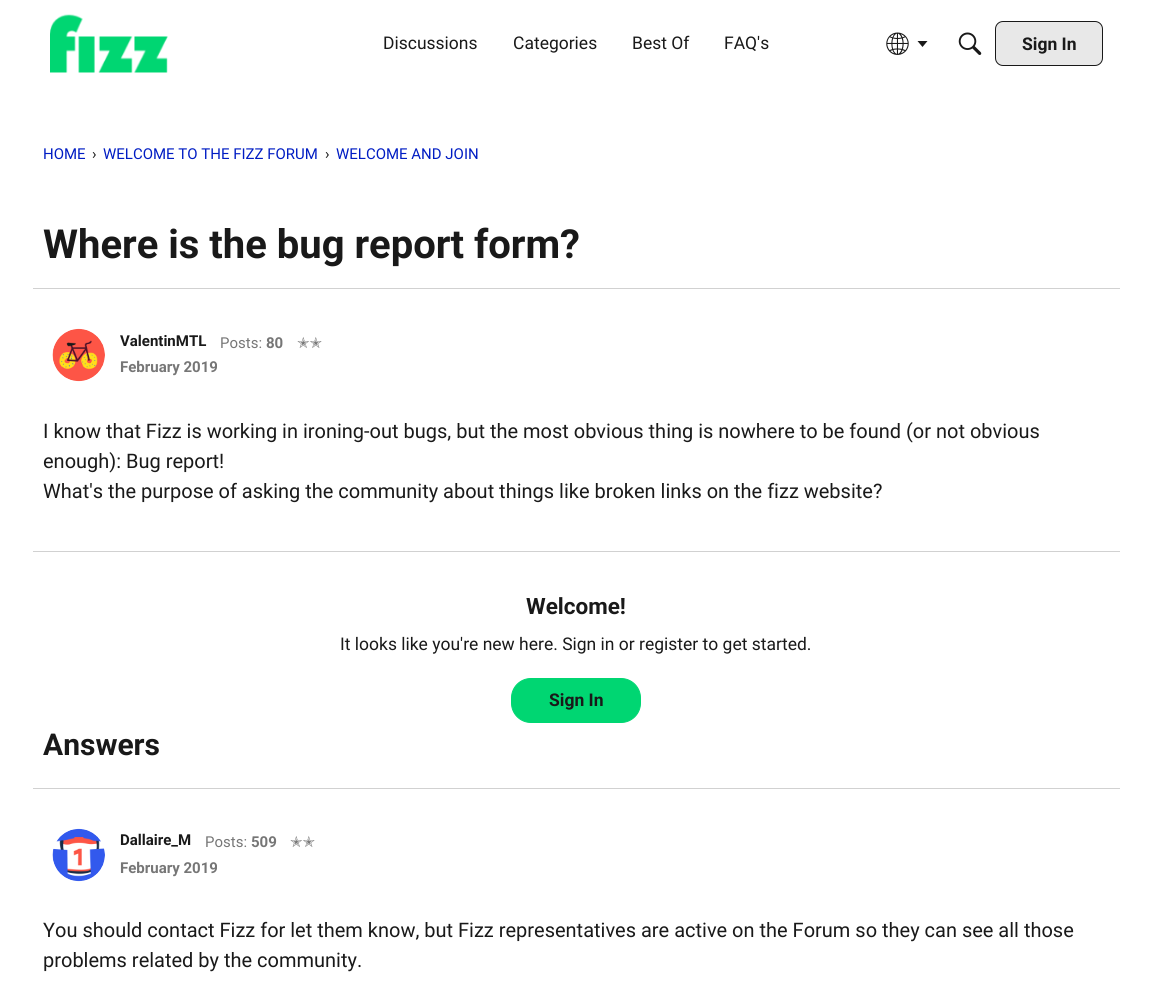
#include <cairo.h>
#include <math.h>
#include <stddef.h>

typedef struct { const char *family; double size; int italic, bold; unsigned color; } style_t;
static cairo_t *ctx;

static void ink(unsigned color) {
    cairo_set_source_rgb(ctx, (color >> 16) / 255.0, (color >> 8 & 255) / 255.0, (color & 255) / 255.0);
}

static void write(double x, double y, const char *s, const style_t *st) {
    cairo_select_font_face(ctx, st->family, st->italic ? CAIRO_FONT_SLANT_ITALIC : CAIRO_FONT_SLANT_NORMAL,
        st->bold ? CAIRO_FONT_WEIGHT_BOLD : CAIRO_FONT_WEIGHT_NORMAL);
    cairo_set_font_size(ctx, st->size);
    ink(st->color);
    cairo_move_to(ctx, x, y);
    cairo_show_text(ctx, s);
}

static void block(double x, double y, double w, double h, unsigned color) {
    ink(color);
    cairo_rectangle(ctx, x, y, w, h);
    cairo_fill(ctx);
}

static void round_path(double x, double y, double w, double h, double r) {
    cairo_new_sub_path(ctx);
    cairo_arc(ctx, x + w - r, y + h - r, r, 0, M_PI / 2);
    cairo_arc(ctx, x + r, y + h - r, r, M_PI / 2, M_PI);
    cairo_arc(ctx, x + r, y + r, r, M_PI, 1.5 * M_PI);
    cairo_arc(ctx, x + w - r, y + r, r, 1.5 * M_PI, 2 * M_PI);
    cairo_close_path(ctx);
}

static void paste(const char *path, double x, double y, double w, double h) {
    cairo_surface_t *image = cairo_image_surface_create_from_png(path);
    cairo_save(ctx);
    cairo_set_source_surface(ctx, image, x, y);
    cairo_rectangle(ctx, x, y, w, h);
    cairo_fill(ctx);
    cairo_restore(ctx);
    cairo_surface_destroy(image);
}

static const style_t s1 = {"Roboto", 17.5, 0, 0, 0x191919};
static const style_t s2 = {"Roboto", 17.5, 0, 1, 0x191919};
static const style_t s3 = {"Roboto", 15, 0, 0, 0x001cc3};
static const style_t s4 = {"Roboto", 15, 0, 0, 0x191919};
static const style_t s5 = {"Roboto", 40, 0, 1, 0x191919};
static const style_t s6 = {"Roboto", 15, 0, 1, 0x191919};
static const style_t s7 = {"Roboto", 15, 0, 0, 0x767676};
static const style_t s8 = {"Roboto", 15, 0, 1, 0x767676};
static const style_t s9 = {"DejaVu Sans", 15, 0, 0, 0x767676};
static const style_t s10 = {"Roboto", 20, 0, 0, 0x191919};
static const style_t s11 = {"Roboto", 22.5, 0, 1, 0x191919};
static const style_t s12 = {"Roboto", 30, 0, 1, 0x191919};

int main(void) {
    cairo_surface_t *surface = cairo_image_surface_create(CAIRO_FORMAT_RGB24, 1152, 1008);
    ctx = cairo_create(surface);
    cairo_font_options_t *options = cairo_font_options_create();
    cairo_font_options_set_hint_metrics(options, CAIRO_HINT_METRICS_OFF);
    cairo_font_options_set_hint_style(options, CAIRO_HINT_STYLE_NONE);
    cairo_set_font_options(ctx, options);
    cairo_set_miter_limit(ctx, 4);
    ink(0xffffff);
    cairo_paint(ctx);
    paste("pic1.png", 50, 14, 118, 59);
    write(383, 49, "Discussions", &s1);
    write(513, 49, "Categories", &s1);
    write(632, 49, "Best Of", &s1);
    write(724, 49, "FAQ's", &s1);
    paste("pic2.png", 886, 32, 23, 23);
    cairo_new_path(ctx);
    cairo_move_to(ctx, 917.5, 41);
    cairo_line_to(ctx, 927.5, 41);
    cairo_line_to(ctx, 922.5, 47);
    cairo_close_path(ctx);
    cairo_fill(ctx);
    paste("pic3.png", 958, 32, 24, 23);
    ink(0xe8e8e8);
    round_path(995.5, 21.5, 107, 44, 7.5);
    cairo_fill_preserve(ctx);
    ink(0x191919);
    cairo_set_line_width(ctx, 1);
    cairo_stroke(ctx);
    write(1022, 50, "Sign In", &s2);
    write(43, 159, "HOME", &s3);
    write(92, 159, "›", &s4);
    write(103, 159, "WELCOME TO THE FIZZ FORUM", &s3);
    write(325, 159, "›", &s4);
    write(336, 159, "WELCOME AND JOIN", &s3);
    write(43, 258, "Where is the bug report form?", &s5);
    block(33, 288, 1087, 1, 0xd1d1d1);
    paste("pic4.png", 52, 328, 53, 54);
    write(120, 346, "ValentinMTL", &s6);
    write(220, 348, "Posts:", &s7);
    write(266, 348, "80", &s8);
    write(297, 348, "✭✭", &s9);
    write(120, 372, "February 2019", &s8);
    write(43, 438, "I know that Fizz is working in ironing-out bugs, but the most obvious thing is nowhere to be found (or not obvious", &s10);
    write(43, 468, "enough): Bug report!", &s10);
    write(43, 498, "What's the purpose of asking the community about things like broken links on the fizz website?", &s10);
    block(33, 551, 1087, 1, 0xd1d1d1);
    write(526, 614, "Welcome!", &s11);
    write(340, 650, "It looks like you're new here. Sign in or register to get started.", &s1);
    ink(0x00d672);
    round_path(511.5, 678.5, 129, 44, 19.5);
    cairo_fill_preserve(ctx);
    cairo_stroke(ctx);
    write(549, 706, "Sign In", &s2);
    write(43, 755, "Answers", &s12);
    block(33, 788, 1087, 1, 0xd1d1d1);
    paste("pic5.png", 52, 828, 53, 54);
    write(120, 845, "Dallaire_M", &s6);
    write(205, 847, "Posts:", &s7);
    write(251, 847, "509", &s8);
    write(290, 847, "✭✭", &s9);
    write(120, 873, "February 2019", &s8);
    write(43, 937, "You should contact Fizz for let them know, but Fizz representatives are active on the Forum so they can see all those", &s10);
    write(43, 967, "problems related by the community.", &s10);
    cairo_surface_write_to_png(surface, "screenshot.png");
    cairo_font_options_destroy(options);
    cairo_destroy(ctx);
    cairo_surface_destroy(surface);
    return 0;
}
